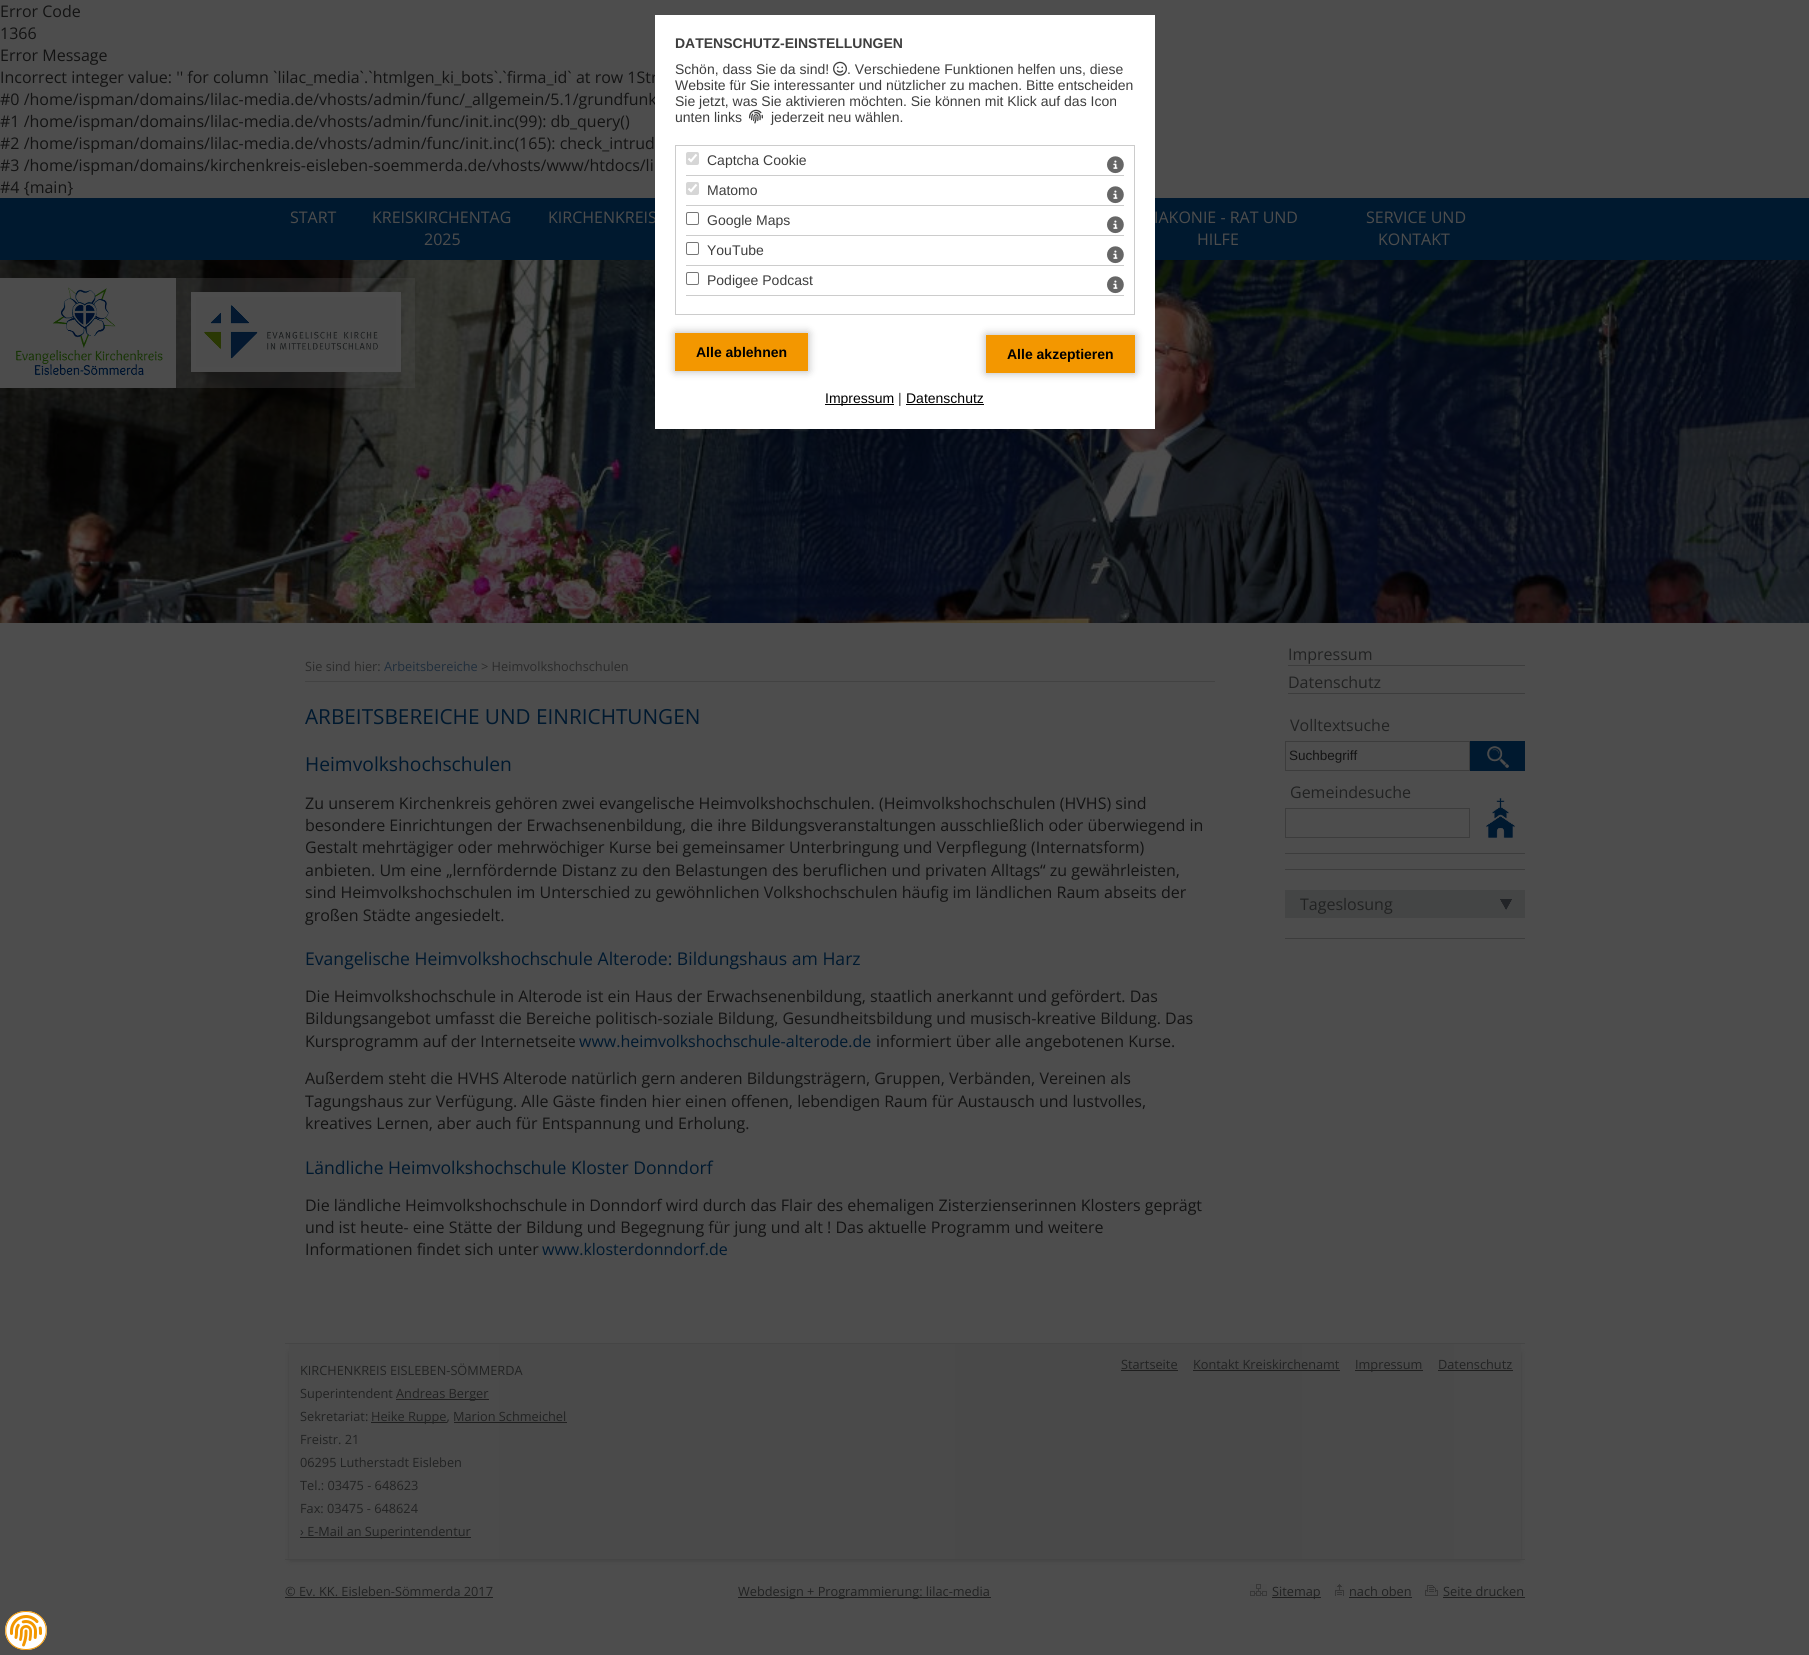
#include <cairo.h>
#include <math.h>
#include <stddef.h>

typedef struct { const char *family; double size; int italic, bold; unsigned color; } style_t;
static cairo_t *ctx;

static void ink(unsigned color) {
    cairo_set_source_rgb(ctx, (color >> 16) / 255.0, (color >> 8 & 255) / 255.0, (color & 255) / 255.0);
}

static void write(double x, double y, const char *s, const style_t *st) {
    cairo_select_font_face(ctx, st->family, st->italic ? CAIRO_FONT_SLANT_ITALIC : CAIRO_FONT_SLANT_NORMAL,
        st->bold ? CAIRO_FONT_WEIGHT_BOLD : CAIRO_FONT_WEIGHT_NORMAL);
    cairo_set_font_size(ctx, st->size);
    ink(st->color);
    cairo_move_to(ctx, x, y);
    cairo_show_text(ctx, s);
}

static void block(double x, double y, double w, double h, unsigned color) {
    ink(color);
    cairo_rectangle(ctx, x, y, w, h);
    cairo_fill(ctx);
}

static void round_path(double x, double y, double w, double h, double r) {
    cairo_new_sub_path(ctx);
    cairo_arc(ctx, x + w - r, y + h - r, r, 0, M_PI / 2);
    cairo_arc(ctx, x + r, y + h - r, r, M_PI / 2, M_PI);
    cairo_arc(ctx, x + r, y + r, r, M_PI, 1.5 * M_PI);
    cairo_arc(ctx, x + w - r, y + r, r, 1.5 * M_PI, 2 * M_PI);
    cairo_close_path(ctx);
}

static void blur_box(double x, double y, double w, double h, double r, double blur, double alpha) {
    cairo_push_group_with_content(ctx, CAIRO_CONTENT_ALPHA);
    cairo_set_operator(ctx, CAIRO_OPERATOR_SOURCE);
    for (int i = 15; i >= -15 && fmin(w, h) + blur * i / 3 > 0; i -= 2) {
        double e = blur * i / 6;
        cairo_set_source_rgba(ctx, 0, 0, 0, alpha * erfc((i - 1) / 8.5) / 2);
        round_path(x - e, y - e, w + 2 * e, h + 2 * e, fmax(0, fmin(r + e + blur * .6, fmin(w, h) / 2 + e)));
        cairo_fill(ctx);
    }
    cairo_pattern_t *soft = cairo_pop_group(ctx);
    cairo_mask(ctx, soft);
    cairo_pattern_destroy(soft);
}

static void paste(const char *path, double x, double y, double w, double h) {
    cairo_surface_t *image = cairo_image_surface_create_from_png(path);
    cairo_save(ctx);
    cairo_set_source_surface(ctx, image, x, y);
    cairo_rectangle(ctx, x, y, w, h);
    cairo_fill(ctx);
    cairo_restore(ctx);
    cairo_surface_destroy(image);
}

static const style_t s1 = {"Open Sans", 16, 0, 0, 0x131313};
static const style_t s2 = {"Open Sans", 16, 0, 0, 0x4d4d4d};
static const style_t s3 = {"Liberation Sans", 14, 0, 1, 0x3e3e3e};
static const style_t s4 = {"Liberation Sans", 14, 0, 0, 0x3e3e3e};
static const style_t s5 = {"Liberation Sans", 14, 0, 1, 0x000000};
static const style_t s6 = {"Liberation Sans", 14, 0, 0, 0x000000};
static const style_t s7 = {"Open Sans", 12.75, 0, 0, 0x2a2a2a};
static const style_t s8 = {"Open Sans", 12.75, 0, 0, 0x1f2d3b};
static const style_t s9 = {"Open Sans", 20.75, 0, 0, 0x00192f};
static const style_t s10 = {"Open Sans", 19.25, 0, 0, 0x00192f};
static const style_t s11 = {"Open Sans", 17.6, 0, 0, 0x00192f};
static const style_t s12 = {"Open Sans", 16, 0, 0, 0x00192f};
static const style_t s13 = {"Open Sans", 16, 0, 0, 0x212222};
static const style_t s14 = {"Liberation Sans", 13.5, 0, 0, 0x131313};
static const style_t s15 = {"Open Sans", 12.75, 0, 0, 0x212222};

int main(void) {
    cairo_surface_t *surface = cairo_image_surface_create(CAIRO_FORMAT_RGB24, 1809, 1655);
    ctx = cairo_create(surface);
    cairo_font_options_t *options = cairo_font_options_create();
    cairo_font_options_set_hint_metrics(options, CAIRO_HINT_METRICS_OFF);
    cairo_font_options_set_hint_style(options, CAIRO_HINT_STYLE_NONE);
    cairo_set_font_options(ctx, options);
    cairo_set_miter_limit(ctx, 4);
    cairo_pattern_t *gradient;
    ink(0x4d4d4d);
    cairo_paint(ctx);
    write(0, 17, "Error Code", &s1);
    write(0, 39, "1366", &s1);
    write(0, 61, "Error Message", &s1);
    write(0, 83, "Incorrect integer value: '' for column `lilac_media`.`htmlgen_ki_bots`.`firma_id` at row 1Str", &s1);
    write(0, 105, "#0 /home/ispman/domains/lilac-media.de/vhosts/admin/func/_allgemein/5.1/grundfunk", &s1);
    block(0, 198, 1809, 62, 0x00192f);
    write(548, 223, "KIRCHENKREIS", &s2);
    paste("pic4.png", 0, 260, 1809, 363);
    block(655, 15, 500, 414, 0xffffff);
    write(675, 48, "DATENSCHUTZ-EINSTELLUNGEN", &s3);
    write(675, 74, "Schön, dass Sie da sind!", &s4);
    paste("pic1.png", 833, 61, 14, 15);
    write(847, 74, ". Verschiedene Funktionen helfen uns, diese", &s4);
    write(675, 90, "Website für Sie interessanter und nützlicher zu machen. Bitte entscheiden", &s4);
    write(675, 106, "Sie jetzt, was Sie aktivieren möchten. Sie können mit Klick auf das Icon", &s4);
    write(675, 122, "unten links", &s4);
    paste("pic2.png", 749, 109, 14, 15);
    write(771, 122, "jederzeit neu wählen.", &s4);
    cairo_rectangle(ctx, 675.5, 145.5, 459, 169);
    ink(0xcccccc);
    cairo_set_line_width(ctx, 1);
    cairo_stroke(ctx);
    block(686, 175, 438, 1, 0xcccccc);
    ink(0xd6d6d6);
    round_path(686, 152, 13, 13, 2);
    cairo_fill(ctx);
    cairo_new_path(ctx);
    cairo_move_to(ctx, 688.5, 158.5);
    cairo_line_to(ctx, 691, 161);
    cairo_line_to(ctx, 696.5, 154.5);
    ink(0xffffff);
    cairo_set_line_width(ctx, 2.1);
    cairo_stroke(ctx);
    write(707, 165, "Captcha Cookie", &s4);
    paste("pic3.png", 1107, 156, 17, 18);
    block(686, 205, 438, 1, 0xcccccc);
    ink(0xd6d6d6);
    round_path(686, 182, 13, 13, 2);
    cairo_fill(ctx);
    cairo_new_path(ctx);
    cairo_move_to(ctx, 688.5, 188.5);
    cairo_line_to(ctx, 691, 191);
    cairo_line_to(ctx, 696.5, 184.5);
    ink(0xffffff);
    cairo_stroke(ctx);
    write(707, 195, "Matomo", &s4);
    paste("pic3.png", 1107, 186, 17, 18);
    block(686, 235, 438, 1, 0xcccccc);
    round_path(686.5, 212.5, 12, 12, 1.5);
    ink(0x767676);
    cairo_set_line_width(ctx, 1);
    cairo_stroke(ctx);
    write(707, 225, "Google Maps", &s4);
    paste("pic3.png", 1107, 216, 17, 18);
    block(686, 265, 438, 1, 0xcccccc);
    round_path(686.5, 242.5, 12, 12, 1.5);
    ink(0x767676);
    cairo_stroke(ctx);
    write(707, 255, "YouTube", &s4);
    paste("pic3.png", 1107, 246, 17, 18);
    block(686, 295, 438, 1, 0xcccccc);
    round_path(686.5, 272.5, 12, 12, 1.5);
    ink(0x767676);
    cairo_stroke(ctx);
    write(707, 285, "Podigee Podcast", &s4);
    paste("pic3.png", 1107, 276, 17, 18);
    ink(0x000000);
    blur_box(986, 335, 149, 38, 0, 4.5, 0.3);
    block(986, 335, 149, 38, 0xf39700);
    write(1007, 359, "Alle akzeptieren", &s5);
    ink(0x000000);
    blur_box(675, 333, 133, 38, 0, 4.5, 0.3);
    block(675, 333, 133, 38, 0xf39700);
    write(696, 357, "Alle ablehnen", &s5);
    block(825, 404, 69, 1, 0x000000);
    write(825, 403, "Impressum", &s6);
    write(898, 403, "|", &s4);
    write(906, 403, "Datenschutz", &s6);
    block(906, 404, 78, 1, 0x000000);
    write(0, 127, "#1 /home/ispman/domains/lilac-media.de/vhosts/admin/func/init.inc(99): db_query()", &s1);
    write(0, 149, "#2 /home/ispman/domains/lilac-media.de/vhosts/admin/func/init.inc(165): check_intrud", &s1);
    write(0, 171, "#3 /home/ispman/domains/kirchenkreis-eisleben-soemmerda.de/vhosts/www/htdocs/li", &s1);
    write(0, 193, "#4 {main}", &s1);
    write(290, 223, "START", &s2);
    write(372, 223, "KREISKIRCHENTAG", &s2);
    write(424, 245, "2025", &s2);
    write(1154, 223, "IAKONIE - RAT UND", &s2);
    write(1197, 245, "HILFE", &s2);
    write(1366, 223, "SERVICE UND", &s2);
    write(1378, 245, "KONTAKT", &s2);
    cairo_set_source_rgba(ctx, 0.302, 0.302, 0.302, 0.3);
    cairo_rectangle(ctx, 176, 278, 239, 110);
    cairo_fill(ctx);
    paste("pic5.png", 0, 278, 176, 110);
    cairo_rectangle(ctx, 193.5, 294.5, 205, 75);
    ink(0x4d4d4d);
    cairo_set_line_width(ctx, 5);
    cairo_stroke(ctx);
    paste("pic6.png", 196, 297, 200, 70);
    block(305, 681, 910, 1, 0x424242);
    write(305, 671, "Sie sind hier:", &s7);
    write(384, 671, "Arbeitsbereiche", &s8);
    write(481, 671, "> Heimvolkshochschulen", &s7);
    write(305, 724, "ARBEITSBEREICHE UND EINRICHTUNGEN", &s9);
    write(305, 771, "Heimvolkshochschulen", &s10);
    write(305, 809, "Zu unserem Kirchenkreis gehören zwei evangelische Heimvolkshochschulen. (Heimvolkshochschulen (HVHS) sind", &s1);
    write(305, 831, "besondere Einrichtungen der Erwachsenenbildung, die ihre Bildungsveranstaltungen ausschließlich oder überwiegend in", &s1);
    write(305, 853, "Gestalt mehrtägiger oder mehrwöchiger Kurse bei gemeinsamer Unterbringung und Verpflegung (Internatsform)", &s1);
    write(305, 876, "anbieten. Um eine „lernfördernde Distanz zu den Belastungen des beruflichen und privaten Alltags“ zu gewährleisten,", &s1);
    write(305, 898, "sind Heimvolkshochschulen im Unterschied zu gewöhnlichen Volkshochschulen häufig im ländlichen Raum abseits der", &s1);
    write(305, 921, "großen Städte angesiedelt.", &s1);
    write(305, 965, "Evangelische Heimvolkshochschule Alterode: Bildungshaus am Harz", &s11);
    write(305, 1002, "Die Heimvolkshochschule in Alterode ist ein Haus der Erwachsenenbildung, staatlich anerkannt und gefördert. Das", &s1);
    write(305, 1024, "Bildungsangebot umfasst die Bereiche politisch-soziale Bildung, Gesundheitsbildung und musisch-kreative Bildung. Das", &s1);
    write(305, 1047, "Kursprogramm auf der Internetseite", &s1);
    write(579, 1047, "www.heimvolkshochschule-alterode.de", &s12);
    write(876, 1047, "informiert über alle angebotenen Kurse.", &s1);
    write(305, 1084, "Außerdem steht die HVHS Alterode natürlich gern anderen Bildungsträgern, Gruppen, Verbänden, Vereinen als", &s1);
    write(305, 1107, "Tagungshaus zur Verfügung. Alle Gäste finden hier einen offenen, lebendigen Raum für Austausch und lustvolles,", &s1);
    write(305, 1129, "kreatives Lernen, aber auch für Entspannung und Erholung.", &s1);
    write(305, 1174, "Ländliche Heimvolkshochschule Kloster Donndorf", &s11);
    write(305, 1211, "Die ländliche Heimvolkshochschule in Donndorf wird durch das Flair des ehemaligen Zisterzienserinnen Klosters geprägt", &s1);
    write(305, 1233, "und ist heute- eine Stätte der Bildung und Begegnung für jung und alt ! Das aktuelle Programm und weitere", &s1);
    write(305, 1255, "Informationen findet sich unter", &s1);
    write(542, 1255, "www.klosterdonndorf.de", &s12);
    block(1288, 665, 237, 1, 0x3c3c3c);
    write(1288, 660, "Impressum", &s13);
    block(1288, 693, 237, 1, 0x3c3c3c);
    write(1288, 688, "Datenschutz", &s13);
    write(1290, 731, "Volltextsuche", &s13);
    cairo_rectangle(ctx, 1285.5, 741.5, 184, 29);
    ink(0x3c3c3c);
    cairo_set_line_width(ctx, 1);
    cairo_stroke(ctx);
    write(1289, 760, "Suchbegriff", &s14);
    block(1470, 741, 55, 30, 0x00192f);
    paste("pic7.png", 1487, 746, 22, 22);
    write(1290, 798, "Gemeindesuche", &s13);
    cairo_rectangle(ctx, 1285.5, 808.5, 184, 29);
    ink(0x3c3c3c);
    cairo_stroke(ctx);
    paste("pic8.png", 1486, 798, 29, 40);
    block(1285, 853, 240, 1, 0x3c3c3c);
    block(1285, 869, 240, 1, 0x3c3c3c);
    block(1285, 890, 240, 28, 0x444545);
    write(1300, 910, "Tageslosung", &s13);
    paste("pic9.png", 1500, 899, 12, 11);
    block(1285, 938, 240, 1, 0x3c3c3c);
    ink(0x3d3d3d);
    blur_box(290, 1353, 1230, 207, 0, 2.5, 1);
    gradient = cairo_pattern_create_linear(1525, 1452, 285, 1452);
    cairo_pattern_add_color_stop_rgba(gradient, 0, 0.294, 0.294, 0.294, 1);
    cairo_pattern_add_color_stop_rgba(gradient, 0.25, 0.286, 0.286, 0.286, 1);
    cairo_pattern_add_color_stop_rgba(gradient, 1, 0.294, 0.294, 0.294, 1);
    cairo_set_source(ctx, gradient);
    cairo_pattern_destroy(gradient);
    cairo_rectangle(ctx, 289, 1344, 1232, 215);
    cairo_fill(ctx);
    block(285, 1343, 1240, 1, 0x454545);
    block(285, 1559, 1240, 1, 0x454545);
    write(300, 1375, "KIRCHENKREIS EISLEBEN-SÖMMERDA", &s15);
    write(300, 1398, "Superintendent", &s15);
    block(396, 1399, 93, 1, 0x1f1f1f);
    write(396, 1398, "Andreas Berger", &s15);
    write(300, 1421, "Sekretariat:", &s15);
    block(371, 1422, 76, 1, 0x1f1f1f);
    write(371, 1421, "Heike Ruppe, Marion Schmeichel", &s15);
    block(454, 1422, 113, 1, 0x1f1f1f);
    write(300, 1444, "Freistr. 21", &s15);
    write(300, 1467, "06295 Lutherstadt Eisleben", &s15);
    write(300, 1490, "Tel.: 03475 - 648623", &s15);
    write(300, 1513, "Fax: 03475 - 648624", &s15);
    block(300, 1537, 171, 1, 0x1f1f1f);
    write(300, 1536, "› E-Mail an Superintendentur", &s15);
    write(1121, 1369, "Startseite", &s15);
    block(1121, 1370, 57, 1, 0x1f1f1f);
    write(1193, 1369, "Kontakt Kreiskirchenamt", &s15);
    block(1193, 1370, 147, 1, 0x1f1f1f);
    block(1355, 1370, 68, 1, 0x1f1f1f);
    write(1355, 1369, "Impressum", &s15);
    write(1438, 1369, "Datenschutz", &s15);
    block(1438, 1370, 75, 1, 0x1f1f1f);
    write(285, 1596, "© Ev. KK. Eisleben-Sömmerda 2017", &s15);
    block(285, 1597, 208, 1, 0x1f1f1f);
    block(738, 1597, 253, 1, 0x1f1f1f);
    write(738, 1596, "Webdesign + Programmierung: lilac-media", &s15);
    paste("pic10.png", 1250, 1584, 17, 12);
    block(1272, 1597, 49, 1, 0x1f1f1f);
    write(1272, 1596, "Sitemap", &s15);
    paste("pic11.png", 1335, 1584, 9, 12);
    write(1349, 1596, "nach oben", &s15);
    block(1349, 1597, 63, 1, 0x1f1f1f);
    paste("pic12.png", 1425, 1585, 13, 11);
    write(1443, 1596, "Seite drucken", &s15);
    block(1443, 1597, 82, 1, 0x1f1f1f);
    ink(0xffffff);
    cairo_new_path(ctx);
    cairo_move_to(ctx, 26, 1611);
    cairo_curve_to(ctx, 37.5, 1611, 47, 1619.5, 47, 1630.5);
    cairo_curve_to(ctx, 47, 1641.5, 37.5, 1650, 26, 1650);
    cairo_curve_to(ctx, 14.5, 1650, 5, 1641.5, 5, 1630.5);
    cairo_curve_to(ctx, 5, 1619.5, 14.5, 1611, 26, 1611);
    cairo_close_path(ctx);
    cairo_fill(ctx);
    cairo_new_path(ctx);
    cairo_move_to(ctx, 26, 1611.5);
    cairo_curve_to(ctx, 53, 1611.5, 53, 1649.5, 26, 1649.5);
    cairo_curve_to(ctx, -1, 1649.5, -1, 1611.5, 26, 1611.5);
    cairo_close_path(ctx);
    ink(0xf39700);
    cairo_stroke(ctx);
    paste("pic13.png", 10, 1615, 32, 32);
    cairo_surface_write_to_png(surface, "screenshot.png");
    cairo_font_options_destroy(options);
    cairo_destroy(ctx);
    cairo_surface_destroy(surface);
    return 0;
}
